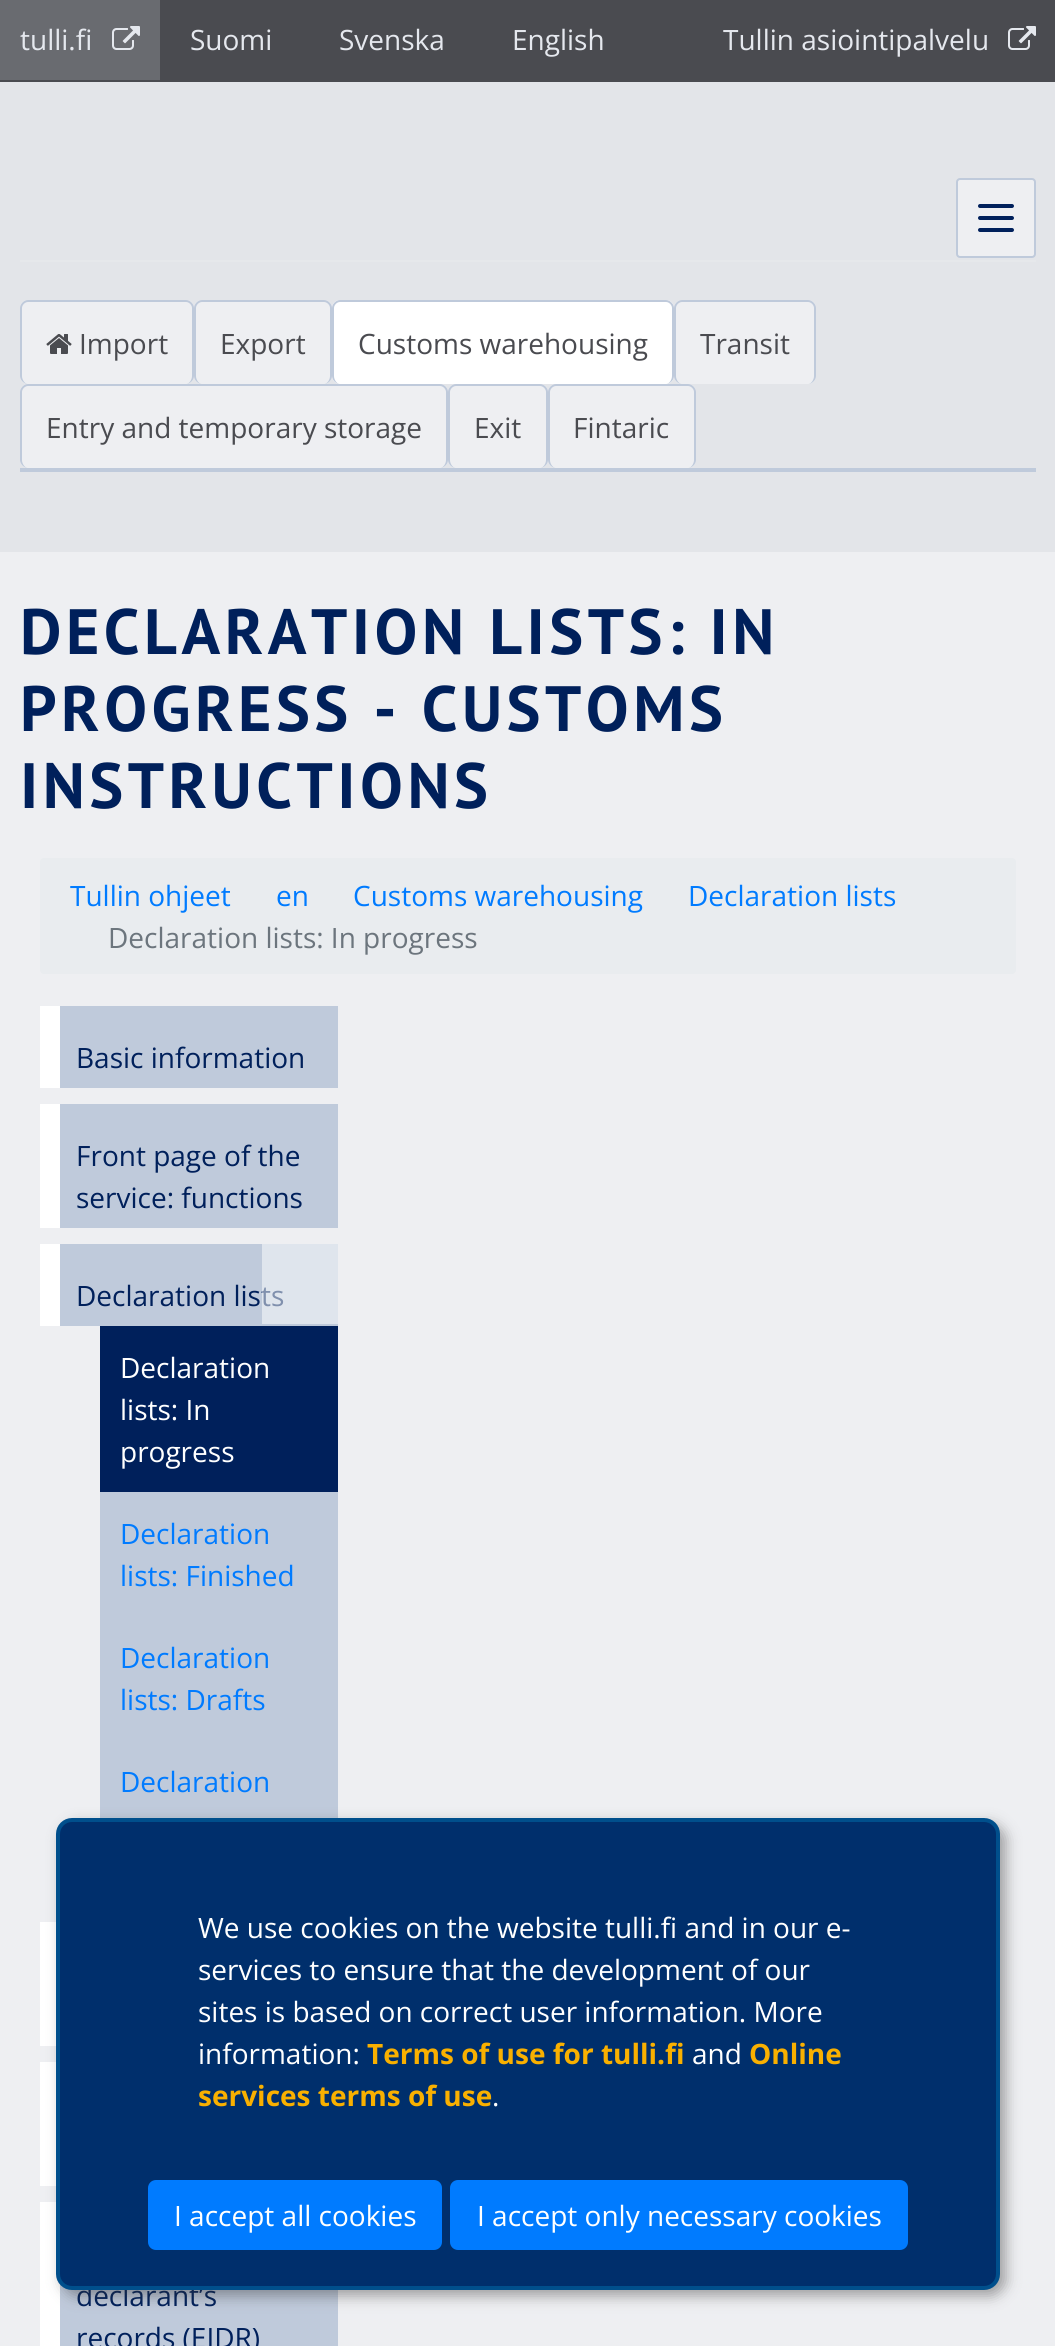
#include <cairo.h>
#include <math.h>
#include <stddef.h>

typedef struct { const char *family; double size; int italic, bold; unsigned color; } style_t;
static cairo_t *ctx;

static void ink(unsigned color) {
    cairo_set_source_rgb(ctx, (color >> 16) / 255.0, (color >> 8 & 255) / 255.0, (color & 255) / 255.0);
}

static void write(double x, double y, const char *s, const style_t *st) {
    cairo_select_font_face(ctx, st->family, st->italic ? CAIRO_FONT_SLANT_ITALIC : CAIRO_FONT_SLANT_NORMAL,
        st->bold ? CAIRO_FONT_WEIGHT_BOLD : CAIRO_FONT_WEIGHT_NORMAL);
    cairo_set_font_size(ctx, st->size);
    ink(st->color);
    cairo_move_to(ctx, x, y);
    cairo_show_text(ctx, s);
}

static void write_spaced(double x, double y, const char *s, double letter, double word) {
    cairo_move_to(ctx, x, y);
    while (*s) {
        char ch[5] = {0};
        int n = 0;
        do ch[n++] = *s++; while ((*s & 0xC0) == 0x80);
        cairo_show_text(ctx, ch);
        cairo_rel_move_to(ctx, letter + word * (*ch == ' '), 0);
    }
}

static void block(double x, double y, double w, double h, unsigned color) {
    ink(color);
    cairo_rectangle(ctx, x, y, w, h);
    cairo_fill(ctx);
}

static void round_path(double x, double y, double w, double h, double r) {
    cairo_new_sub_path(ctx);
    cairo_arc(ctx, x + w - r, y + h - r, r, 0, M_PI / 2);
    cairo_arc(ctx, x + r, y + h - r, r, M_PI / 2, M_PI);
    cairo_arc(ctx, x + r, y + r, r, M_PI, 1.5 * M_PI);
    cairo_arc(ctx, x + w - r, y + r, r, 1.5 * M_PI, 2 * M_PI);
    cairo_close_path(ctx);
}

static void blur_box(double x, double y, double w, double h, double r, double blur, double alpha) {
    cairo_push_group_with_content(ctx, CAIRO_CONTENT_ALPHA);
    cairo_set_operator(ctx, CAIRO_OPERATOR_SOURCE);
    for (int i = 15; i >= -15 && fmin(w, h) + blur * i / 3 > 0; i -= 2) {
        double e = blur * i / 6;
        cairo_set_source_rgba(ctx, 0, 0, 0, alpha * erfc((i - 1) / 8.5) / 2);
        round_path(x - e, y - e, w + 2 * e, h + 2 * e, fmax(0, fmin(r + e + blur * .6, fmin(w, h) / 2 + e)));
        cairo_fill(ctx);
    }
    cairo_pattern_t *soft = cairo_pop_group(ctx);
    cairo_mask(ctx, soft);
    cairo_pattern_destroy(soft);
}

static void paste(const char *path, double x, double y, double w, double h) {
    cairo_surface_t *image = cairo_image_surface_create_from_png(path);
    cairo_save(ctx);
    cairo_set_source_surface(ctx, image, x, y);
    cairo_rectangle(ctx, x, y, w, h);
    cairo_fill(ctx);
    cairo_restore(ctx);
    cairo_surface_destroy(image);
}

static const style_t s1 = {"Open Sans", 28, 0, 0, 0xe5e8ee};
static const style_t s2 = {"Open Sans", 28, 0, 0, 0x4a4b50};
static const style_t s3 = {"Open Sans", 28, 0, 0, 0x007bff};
static const style_t s4 = {"Open Sans", 28, 0, 0, 0x6c757d};
static const style_t s5 = {"Open Sans", 28, 0, 0, 0x00205b};
static const style_t s6 = {"Open Sans", 28, 0, 0, 0xffffff};
static const style_t s7 = {"Open Sans", 28, 0, 1, 0xf9b000};

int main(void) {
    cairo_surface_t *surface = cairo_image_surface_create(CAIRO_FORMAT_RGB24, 1055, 2346);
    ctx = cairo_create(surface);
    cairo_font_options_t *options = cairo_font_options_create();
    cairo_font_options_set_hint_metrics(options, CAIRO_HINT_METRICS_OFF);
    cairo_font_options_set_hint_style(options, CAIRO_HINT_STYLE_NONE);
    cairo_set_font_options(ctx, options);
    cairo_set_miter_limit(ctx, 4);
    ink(0xeeeff2);
    cairo_paint(ctx);
    block(160, 0, 895, 80, 0x4a4b50);
    block(0, 80, 1055, 2, 0x4a4b50);
    block(0, 0, 160, 80, 0x696b70);
    write(20, 50, "tulli.fi", &s1);
    paste("pic1.png", 112, 26, 28, 24);
    write(190, 50, "Suomi", &s1);
    write(339, 50, "Svenska", &s1);
    write(512, 50, "English", &s1);
    write(723, 50, "Tullin asiointipalvelu", &s1);
    paste("pic2.png", 1008, 26, 28, 24);
    block(0, 82, 1055, 470, 0xe3e5e9);
    ink(0xeeeff2);
    round_path(957, 179, 78, 78, 3);
    cairo_fill_preserve(ctx);
    ink(0xbfcadb);
    cairo_stroke(ctx);
    ink(0x00205b);
    round_path(978, 204, 36, 4, 2);
    cairo_fill(ctx);
    round_path(978, 216, 36, 4, 2);
    cairo_fill(ctx);
    round_path(978, 228, 36, 4, 2);
    cairo_fill(ctx);
    block(20, 260, 1016, 2, 0xe6e8eb);
    block(20, 468, 1016, 4, 0xbfcadb);
    ink(0xeeeff2);
    round_path(20, 300, 174, 84, 8);
    cairo_fill(ctx);
    ink(0xbfcadb);
    cairo_set_fill_rule(ctx, CAIRO_FILL_RULE_EVEN_ODD);
    cairo_new_path(ctx);
    cairo_move_to(ctx, 28, 300);
    cairo_line_to(ctx, 186, 300);
    cairo_curve_to(ctx, 190, 300, 194, 304, 194, 308);
    cairo_line_to(ctx, 194, 376);
    cairo_curve_to(ctx, 194, 380, 190, 384, 186, 384);
    cairo_line_to(ctx, 28, 384);
    cairo_curve_to(ctx, 24, 384, 20, 380, 20, 376);
    cairo_line_to(ctx, 20, 308);
    cairo_curve_to(ctx, 20, 304, 24, 300, 28, 300);
    cairo_close_path(ctx);
    cairo_move_to(ctx, 28, 302);
    cairo_line_to(ctx, 186, 302);
    cairo_curve_to(ctx, 189, 302, 192, 305, 192, 308);
    cairo_line_to(ctx, 192, 376);
    cairo_curve_to(ctx, 192, 380, 189, 384, 186, 384);
    cairo_line_to(ctx, 28, 384);
    cairo_curve_to(ctx, 25, 384, 22, 380, 22, 376);
    cairo_line_to(ctx, 22, 308);
    cairo_curve_to(ctx, 22, 305, 25, 302, 28, 302);
    cairo_close_path(ctx);
    cairo_fill(ctx);
    paste("pic3.png", 46, 334, 26, 20);
    write(79, 354, "Import", &s2);
    ink(0xeeeff2);
    round_path(194, 300, 138, 84, 8);
    cairo_fill(ctx);
    ink(0xbfcadb);
    cairo_new_path(ctx);
    cairo_move_to(ctx, 202, 300);
    cairo_line_to(ctx, 324, 300);
    cairo_curve_to(ctx, 328, 300, 332, 304, 332, 308);
    cairo_line_to(ctx, 332, 376);
    cairo_curve_to(ctx, 332, 380, 328, 384, 324, 384);
    cairo_line_to(ctx, 202, 384);
    cairo_curve_to(ctx, 198, 384, 194, 380, 194, 376);
    cairo_line_to(ctx, 194, 308);
    cairo_curve_to(ctx, 194, 304, 198, 300, 202, 300);
    cairo_close_path(ctx);
    cairo_move_to(ctx, 202, 302);
    cairo_line_to(ctx, 324, 302);
    cairo_curve_to(ctx, 327, 302, 330, 305, 330, 308);
    cairo_line_to(ctx, 330, 376);
    cairo_curve_to(ctx, 330, 380, 327, 384, 324, 384);
    cairo_line_to(ctx, 202, 384);
    cairo_curve_to(ctx, 199, 384, 196, 380, 196, 376);
    cairo_line_to(ctx, 196, 308);
    cairo_curve_to(ctx, 196, 305, 199, 302, 202, 302);
    cairo_close_path(ctx);
    cairo_fill(ctx);
    write(220, 354, "Export", &s2);
    ink(0xffffff);
    round_path(332, 300, 342, 84, 8);
    cairo_fill(ctx);
    ink(0xbfcadb);
    cairo_new_path(ctx);
    cairo_move_to(ctx, 340, 300);
    cairo_line_to(ctx, 666, 300);
    cairo_curve_to(ctx, 670, 300, 674, 304, 674, 308);
    cairo_line_to(ctx, 674, 376);
    cairo_curve_to(ctx, 674, 380, 670, 384, 666, 384);
    cairo_line_to(ctx, 340, 384);
    cairo_curve_to(ctx, 336, 384, 332, 380, 332, 376);
    cairo_line_to(ctx, 332, 308);
    cairo_curve_to(ctx, 332, 304, 336, 300, 340, 300);
    cairo_close_path(ctx);
    cairo_move_to(ctx, 340, 302);
    cairo_line_to(ctx, 666, 302);
    cairo_curve_to(ctx, 669, 302, 672, 305, 672, 308);
    cairo_line_to(ctx, 672, 376);
    cairo_curve_to(ctx, 672, 380, 669, 384, 666, 384);
    cairo_line_to(ctx, 340, 384);
    cairo_curve_to(ctx, 337, 384, 334, 380, 334, 376);
    cairo_line_to(ctx, 334, 308);
    cairo_curve_to(ctx, 334, 305, 337, 302, 340, 302);
    cairo_close_path(ctx);
    cairo_fill(ctx);
    write(358, 354, "Customs warehousing", &s2);
    ink(0xeeeff2);
    round_path(674, 300, 142, 84, 8);
    cairo_fill(ctx);
    ink(0xbfcadb);
    cairo_new_path(ctx);
    cairo_move_to(ctx, 682, 300);
    cairo_line_to(ctx, 808, 300);
    cairo_curve_to(ctx, 812, 300, 816, 304, 816, 308);
    cairo_line_to(ctx, 816, 376);
    cairo_curve_to(ctx, 816, 380, 812, 384, 808, 384);
    cairo_line_to(ctx, 682, 384);
    cairo_curve_to(ctx, 678, 384, 674, 380, 674, 376);
    cairo_line_to(ctx, 674, 308);
    cairo_curve_to(ctx, 674, 304, 678, 300, 682, 300);
    cairo_close_path(ctx);
    cairo_move_to(ctx, 682, 302);
    cairo_line_to(ctx, 808, 302);
    cairo_curve_to(ctx, 811, 302, 814, 305, 814, 308);
    cairo_line_to(ctx, 814, 376);
    cairo_curve_to(ctx, 814, 380, 811, 384, 808, 384);
    cairo_line_to(ctx, 682, 384);
    cairo_curve_to(ctx, 679, 384, 676, 380, 676, 376);
    cairo_line_to(ctx, 676, 308);
    cairo_curve_to(ctx, 676, 305, 679, 302, 682, 302);
    cairo_close_path(ctx);
    cairo_fill(ctx);
    write(700, 354, "Transit", &s2);
    ink(0xeeeff2);
    round_path(20, 384, 428, 84, 8);
    cairo_fill(ctx);
    ink(0xbfcadb);
    cairo_new_path(ctx);
    cairo_move_to(ctx, 28, 384);
    cairo_line_to(ctx, 440, 384);
    cairo_curve_to(ctx, 444, 384, 448, 388, 448, 392);
    cairo_line_to(ctx, 448, 460);
    cairo_curve_to(ctx, 448, 464, 444, 468, 440, 468);
    cairo_line_to(ctx, 28, 468);
    cairo_curve_to(ctx, 24, 468, 20, 464, 20, 460);
    cairo_line_to(ctx, 20, 392);
    cairo_curve_to(ctx, 20, 388, 24, 384, 28, 384);
    cairo_close_path(ctx);
    cairo_move_to(ctx, 28, 386);
    cairo_line_to(ctx, 440, 386);
    cairo_curve_to(ctx, 443, 386, 446, 389, 446, 392);
    cairo_line_to(ctx, 446, 460);
    cairo_curve_to(ctx, 446, 464, 443, 468, 440, 468);
    cairo_line_to(ctx, 28, 468);
    cairo_curve_to(ctx, 25, 468, 22, 464, 22, 460);
    cairo_line_to(ctx, 22, 392);
    cairo_curve_to(ctx, 22, 389, 25, 386, 28, 386);
    cairo_close_path(ctx);
    cairo_fill(ctx);
    write(46, 438, "Entry and temporary storage", &s2);
    ink(0xeeeff2);
    round_path(448, 384, 100, 84, 8);
    cairo_fill(ctx);
    ink(0xbfcadb);
    cairo_new_path(ctx);
    cairo_move_to(ctx, 456, 384);
    cairo_line_to(ctx, 540, 384);
    cairo_curve_to(ctx, 544, 384, 548, 388, 548, 392);
    cairo_line_to(ctx, 548, 460);
    cairo_curve_to(ctx, 548, 464, 544, 468, 540, 468);
    cairo_line_to(ctx, 456, 468);
    cairo_curve_to(ctx, 452, 468, 448, 464, 448, 460);
    cairo_line_to(ctx, 448, 392);
    cairo_curve_to(ctx, 448, 388, 452, 384, 456, 384);
    cairo_close_path(ctx);
    cairo_move_to(ctx, 456, 386);
    cairo_line_to(ctx, 540, 386);
    cairo_curve_to(ctx, 543, 386, 546, 389, 546, 392);
    cairo_line_to(ctx, 546, 460);
    cairo_curve_to(ctx, 546, 464, 543, 468, 540, 468);
    cairo_line_to(ctx, 456, 468);
    cairo_curve_to(ctx, 453, 468, 450, 464, 450, 460);
    cairo_line_to(ctx, 450, 392);
    cairo_curve_to(ctx, 450, 389, 453, 386, 456, 386);
    cairo_close_path(ctx);
    cairo_fill(ctx);
    write(474, 438, "Exit", &s2);
    ink(0xeeeff2);
    round_path(548, 384, 148, 84, 8);
    cairo_fill(ctx);
    ink(0xbfcadb);
    cairo_new_path(ctx);
    cairo_move_to(ctx, 556, 384);
    cairo_line_to(ctx, 688, 384);
    cairo_curve_to(ctx, 692, 384, 696, 388, 696, 392);
    cairo_line_to(ctx, 696, 460);
    cairo_curve_to(ctx, 696, 464, 692, 468, 688, 468);
    cairo_line_to(ctx, 556, 468);
    cairo_curve_to(ctx, 552, 468, 548, 464, 548, 460);
    cairo_line_to(ctx, 548, 392);
    cairo_curve_to(ctx, 548, 388, 552, 384, 556, 384);
    cairo_close_path(ctx);
    cairo_move_to(ctx, 556, 386);
    cairo_line_to(ctx, 688, 386);
    cairo_curve_to(ctx, 691, 386, 694, 389, 694, 392);
    cairo_line_to(ctx, 694, 460);
    cairo_curve_to(ctx, 694, 464, 691, 468, 688, 468);
    cairo_line_to(ctx, 556, 468);
    cairo_curve_to(ctx, 553, 468, 550, 464, 550, 460);
    cairo_line_to(ctx, 550, 392);
    cairo_curve_to(ctx, 550, 389, 553, 386, 556, 386);
    cairo_close_path(ctx);
    cairo_fill(ctx);
    write(573, 438, "Fintaric", &s2);
    cairo_select_font_face(ctx, "PT Sans", CAIRO_FONT_SLANT_NORMAL, CAIRO_FONT_WEIGHT_BOLD);
    cairo_set_font_size(ctx, 64);
    ink(0x00205b);
    write_spaced(20, 654, "DECLARATION LISTS: IN", 4.5, 0);
    write_spaced(20, 731, "PROGRESS - CUSTOMS", 4.5, 0);
    write_spaced(20, 808, "INSTRUCTIONS", 4.5, 0);
    ink(0xe9ecef);
    round_path(40, 858, 976, 116, 4);
    cairo_fill(ctx);
    write(70, 906, "Tullin ohjeet", &s3);
    write(276, 906, "en", &s3);
    write(353, 906, "Customs warehousing", &s3);
    write(688, 906, "Declaration lists", &s3);
    write(108, 948, "Declaration lists: In progress", &s4);
    block(60, 1006, 278, 82, 0xbfcadb);
    block(40, 1006, 20, 82, 0xffffff);
    write(76, 1068, "Basic information", &s5);
    block(60, 1104, 278, 124, 0xbfcadb);
    block(40, 1104, 20, 124, 0xffffff);
    write(76, 1166, "Front page of the", &s5);
    write(76, 1208, "service: functions", &s5);
    block(60, 1244, 278, 82, 0xbfcadb);
    block(40, 1244, 20, 82, 0xffffff);
    write(76, 1306, "Declaration lists", &s5);
    cairo_set_source_rgba(ctx, 1, 1, 1, 0.5);
    cairo_rectangle(ctx, 262, 1244, 76, 80);
    cairo_fill(ctx);
    block(100, 1492, 238, 326, 0xbfcadb);
    block(100, 1326, 238, 166, 0x00205b);
    write(120, 1378, "Declaration", &s6);
    write(120, 1420, "lists: In", &s6);
    write(120, 1462, "progress", &s6);
    write(120, 1544, "Declaration", &s3);
    write(120, 1586, "lists: Finished", &s3);
    write(120, 1668, "Declaration", &s3);
    write(120, 1710, "lists: Drafts", &s3);
    write(120, 1792, "Declaration", &s3);
    block(40, 1922, 16, 124, 0xffffff);
    block(40, 2062, 16, 124, 0xffffff);
    block(60, 2284, 278, 62, 0xbfcadb);
    block(40, 2202, 20, 144, 0xffffff);
    write(76, 2306, "declarant’s", &s5);
    write(76, 2348, "records (EIDR)", &s5);
    ink(0x323232);
    blur_box(62, 1824, 944, 472, 16, 7, 0.43);
    ink(0x002f6c);
    round_path(58, 1820, 940, 468, 14);
    cairo_fill_preserve(ctx);
    ink(0x004f8c);
    cairo_set_line_width(ctx, 4);
    cairo_stroke(ctx);
    write(198, 1938, "We use cookies on the website tulli.fi and in our e-", &s6);
    write(198, 1980, "services to ensure that the development of our", &s6);
    write(198, 2022, "sites is based on correct user information. More", &s6);
    write(198, 2064, "information:", &s6);
    write(367, 2064, "Terms of use for tulli.fi", &s7);
    write(692, 2064, "and", &s6);
    write(749, 2064, "Online", &s7);
    write(198, 2106, "services terms of use", &s7);
    write(492, 2106, ".", &s6);
    ink(0x007bff);
    round_path(149, 2181, 292, 68, 7);
    cairo_fill_preserve(ctx);
    cairo_set_line_width(ctx, 2);
    cairo_stroke(ctx);
    write(174, 2226, "I accept all cookies", &s6);
    ink(0x007bff);
    round_path(451, 2181, 456, 68, 7);
    cairo_fill_preserve(ctx);
    cairo_stroke(ctx);
    write(477, 2226, "I accept only necessary cookies", &s6);
    cairo_surface_write_to_png(surface, "screenshot.png");
    cairo_font_options_destroy(options);
    cairo_destroy(ctx);
    cairo_surface_destroy(surface);
    return 0;
}
